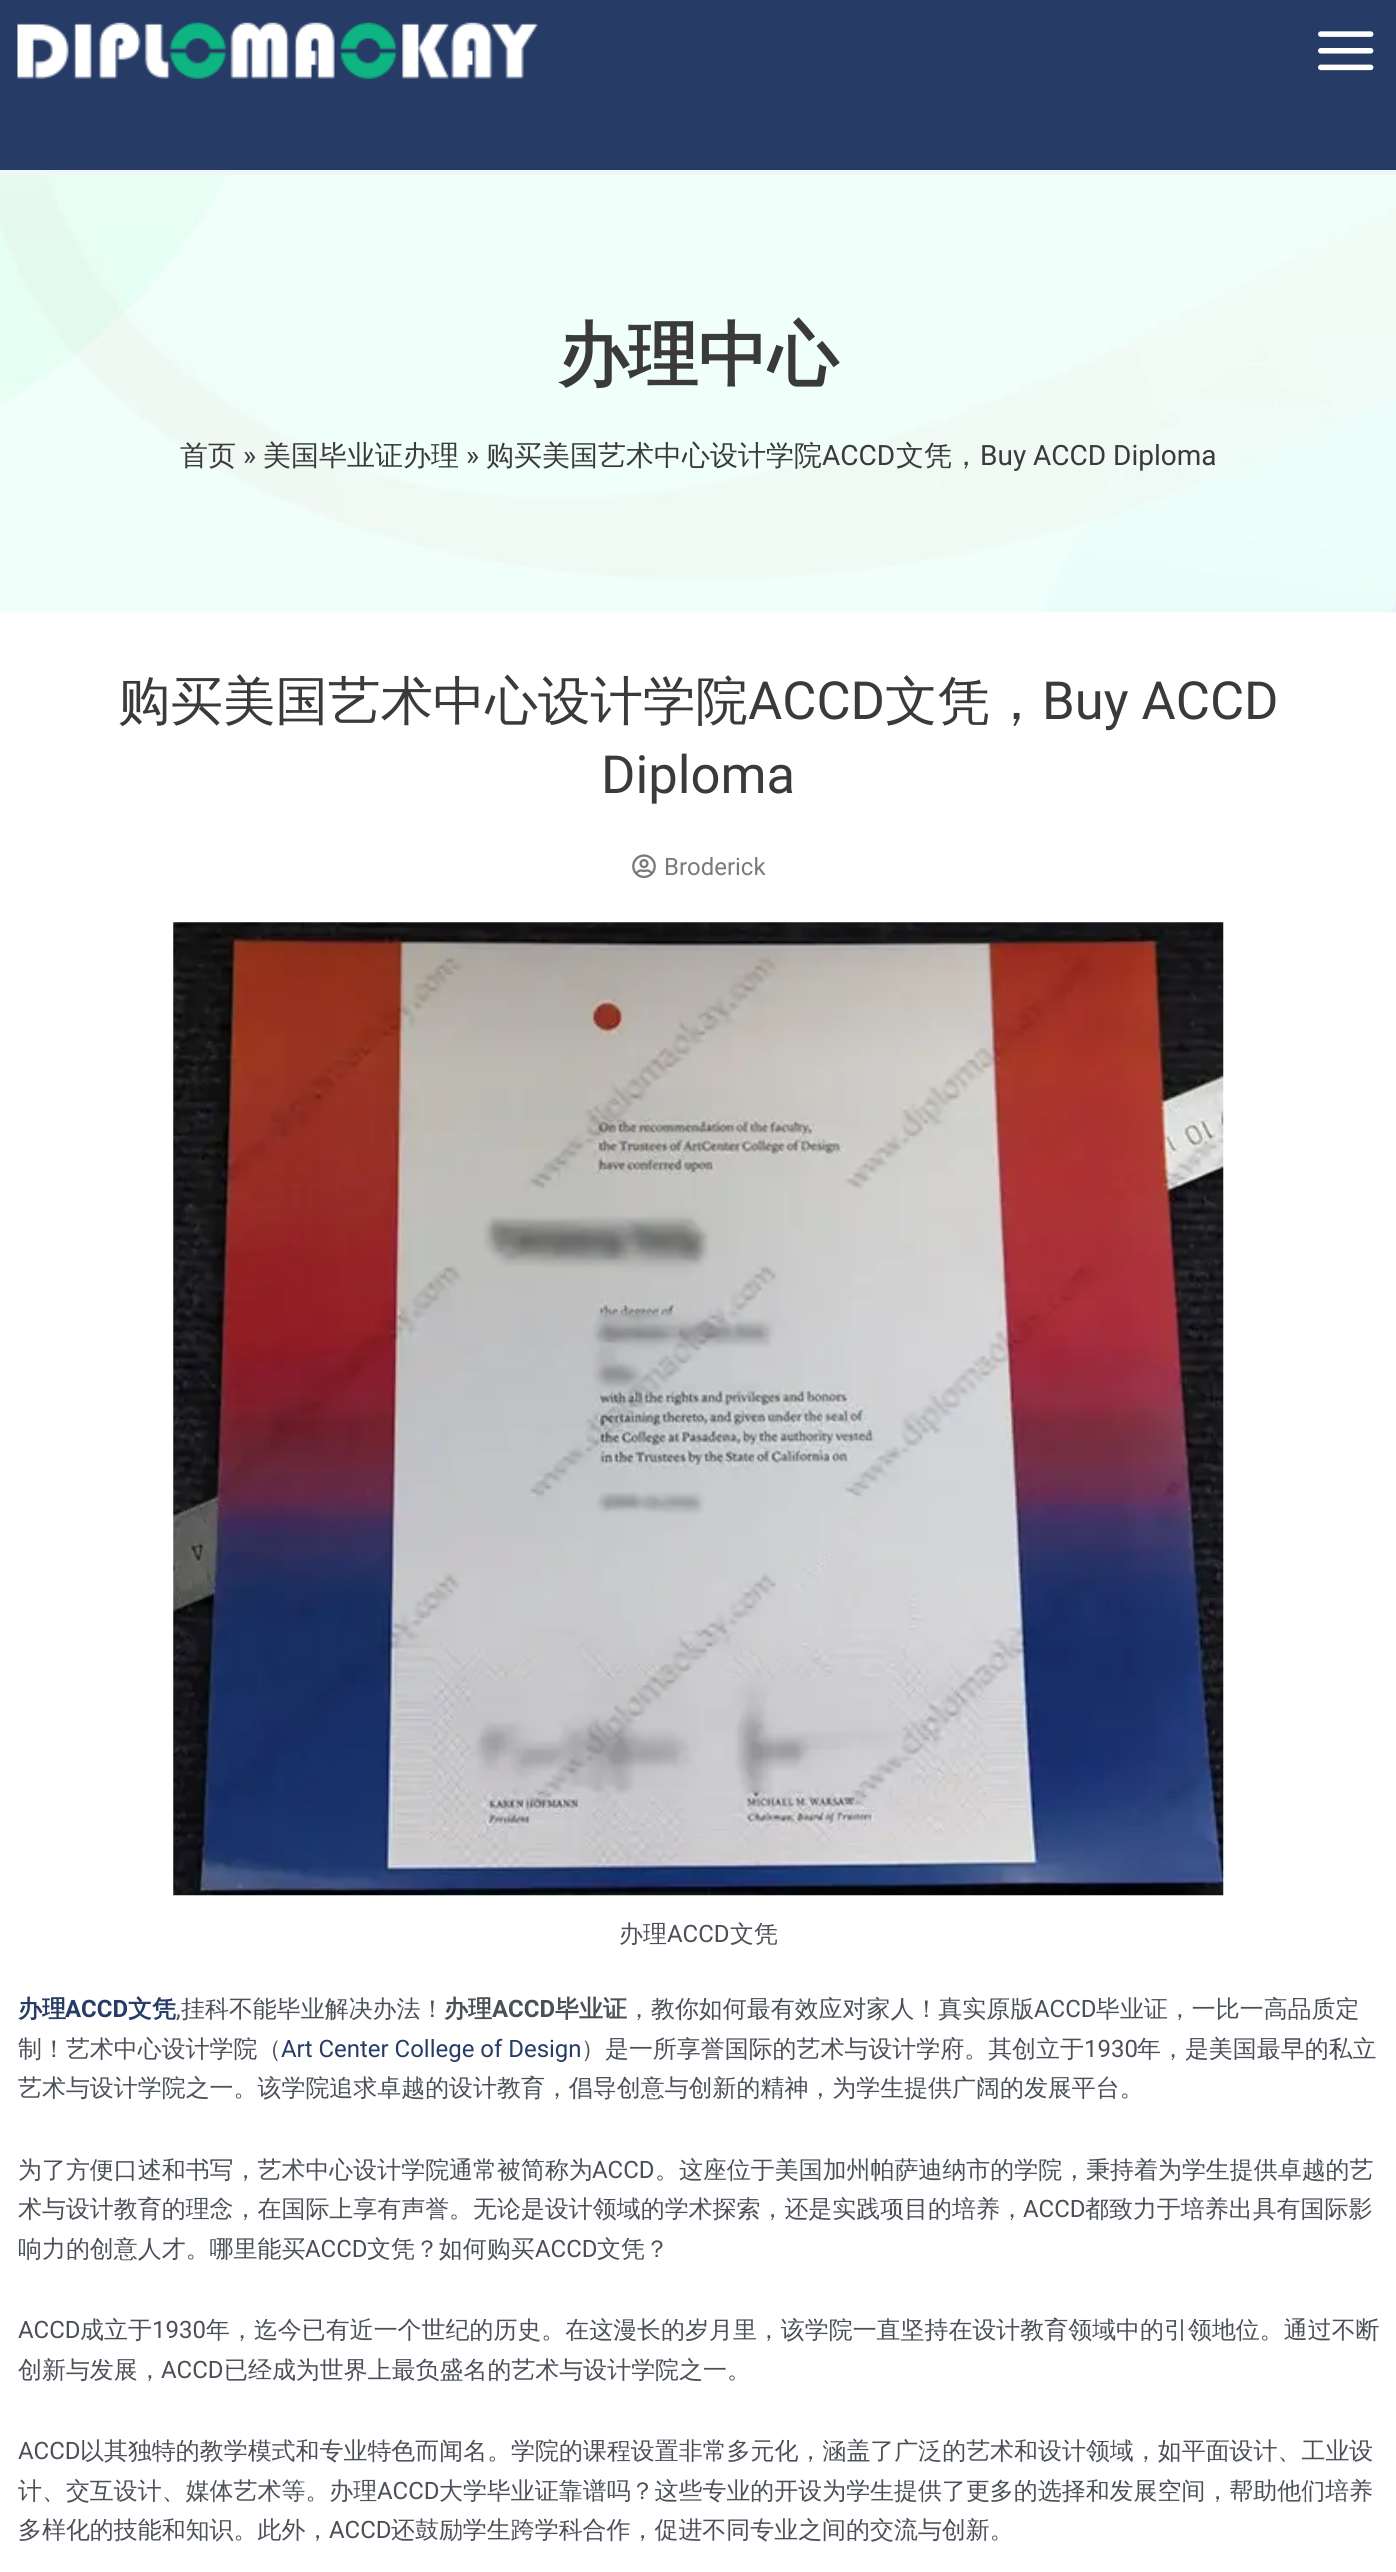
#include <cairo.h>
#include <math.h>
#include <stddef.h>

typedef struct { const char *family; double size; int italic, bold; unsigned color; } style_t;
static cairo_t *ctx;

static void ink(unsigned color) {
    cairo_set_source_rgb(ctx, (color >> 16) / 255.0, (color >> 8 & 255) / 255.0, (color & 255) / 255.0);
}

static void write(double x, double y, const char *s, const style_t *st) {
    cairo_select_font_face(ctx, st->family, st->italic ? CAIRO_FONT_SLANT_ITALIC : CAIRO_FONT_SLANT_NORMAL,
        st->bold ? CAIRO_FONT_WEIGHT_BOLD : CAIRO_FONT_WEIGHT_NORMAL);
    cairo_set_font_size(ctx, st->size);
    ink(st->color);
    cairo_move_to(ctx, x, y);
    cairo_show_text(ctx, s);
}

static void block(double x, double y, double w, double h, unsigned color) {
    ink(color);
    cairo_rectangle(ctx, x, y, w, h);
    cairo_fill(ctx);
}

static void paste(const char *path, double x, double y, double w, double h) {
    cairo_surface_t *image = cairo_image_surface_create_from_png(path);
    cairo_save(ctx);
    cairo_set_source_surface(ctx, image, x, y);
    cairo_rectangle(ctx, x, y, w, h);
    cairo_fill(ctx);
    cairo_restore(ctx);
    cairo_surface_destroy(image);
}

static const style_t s1 = {"WenQuanYi Zen Hei", 70, 0, 1, 0x3a3a3a};
static const style_t s2 = {"WenQuanYi Zen Hei Medium", 28, 0, 0, 0x3a3a3a};
static const style_t s3 = {"Roboto", 28, 0, 0, 0x3a3a3a};
static const style_t s4 = {"WenQuanYi Zen Hei Medium", 52.5, 0, 0, 0x3a3a3a};
static const style_t s5 = {"Roboto", 52.5, 0, 0, 0x3a3a3a};
static const style_t s6 = {"Roboto", 23.95, 0, 0, 0x7a7a7a};
static const style_t s7 = {"WenQuanYi Zen Hei Medium", 23.95, 0, 0, 0x4b4f58};
static const style_t s8 = {"Roboto", 23.95, 0, 0, 0x4b4f58};
static const style_t s9 = {"WenQuanYi Zen Hei", 23.95, 0, 1, 0x263c66};
static const style_t s10 = {"Roboto", 23.95, 0, 1, 0x263c66};
static const style_t s11 = {"WenQuanYi Zen Hei", 23.95, 0, 1, 0x4b4f58};
static const style_t s12 = {"Roboto", 23.95, 0, 1, 0x4b4f58};
static const style_t s13 = {"Roboto", 23.95, 0, 0, 0x263c66};

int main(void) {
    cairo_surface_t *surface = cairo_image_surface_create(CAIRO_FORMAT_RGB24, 1396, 2572);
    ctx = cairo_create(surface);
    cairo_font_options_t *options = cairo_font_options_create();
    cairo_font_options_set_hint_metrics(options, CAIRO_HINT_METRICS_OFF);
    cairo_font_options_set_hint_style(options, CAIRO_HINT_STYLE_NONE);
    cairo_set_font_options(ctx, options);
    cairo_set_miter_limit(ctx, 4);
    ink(0xffffff);
    cairo_paint(ctx);
    block(0, 0, 1396, 170, 0x263c66);
    block(0, 170, 1396, 5, 0xf2f5f7);
    paste("pic1.png", 17, 22, 521, 57);
    paste("pic2.png", 1318, 31, 56, 40);
    paste("pic3.png", 0, 175, 1396, 438);
    write(558, 379, "办理中心", &s1);
    write(180, 465, "首页", &s2);
    write(243, 465, "»", &s3);
    write(263, 465, "美国毕业证办理", &s2);
    write(466, 465, "»", &s3);
    write(486, 465, "购买美国艺术中心设计学院", &s2);
    write(822, 465, "ACCD", &s3);
    write(896, 465, "文凭，", &s2);
    write(980, 465, "Buy ACCD Diploma", &s3);
    write(118, 719, "购买美国艺术中心设计学院", &s4);
    write(748, 719, "ACCD", &s5);
    write(885, 719, "文凭，", &s4);
    write(1042, 719, "Buy ACCD", &s5);
    write(601, 793, "Diploma", &s5);
    paste("pic4.png", 632, 854, 24, 25);
    write(664, 875, "Broderick", &s6);
    paste("pic5.png", 173, 922, 1051, 974);
    write(619, 1942, "办理", &s7);
    write(667, 1942, "ACCD", &s8);
    write(730, 1942, "文凭", &s7);
    write(18, 2017, "办理", &s9);
    write(65, 2017, "ACCD", &s10);
    write(128, 2017, "文凭", &s9);
    write(176, 2017, ",", &s8);
    write(181, 2017, "挂科不能毕业解决办法！", &s7);
    write(444, 2017, "办理", &s11);
    write(492, 2017, "ACCD", &s12);
    write(555, 2017, "毕业证", &s11);
    write(627, 2017, "，教你如何最有效应对家人！真实原版", &s7);
    write(1034, 2017, "ACCD", &s8);
    write(1096, 2017, "毕业证，一比一高品质定", &s7);
    write(18, 2057, "制！艺术中心设计学院（", &s7);
    write(281, 2057, "Art Center College of Design", &s13);
    write(581, 2057, "）是一所享誉国际的艺术与设计学府。其创立于", &s7);
    write(1084, 2057, "1930", &s8);
    write(1137, 2057, "年，是美国最早的私立", &s7);
    write(18, 2096, "艺术与设计学院之一。该学院追求卓越的设计教育，倡导创意与创新的精神，为学生提供广阔的发展平台。", &s7);
    write(18, 2178, "为了方便口述和书写，艺术中心设计学院通常被简称为", &s7);
    write(592, 2178, "ACCD", &s8);
    write(655, 2178, "。这座位于美国加州帕萨迪纳市的学院，秉持着为学生提供卓越的艺", &s7);
    write(18, 2217, "术与设计教育的理念，在国际上享有声誉。无论是设计领域的学术探索，还是实践项目的培养，", &s7);
    write(1023, 2217, "ACCD", &s8);
    write(1085, 2217, "都致力于培养出具有国际影", &s7);
    write(18, 2257, "响力的创意人才。哪里能买", &s7);
    write(305, 2257, "ACCD", &s8);
    write(367, 2257, "文凭？如何购买", &s7);
    write(535, 2257, "ACCD", &s8);
    write(597, 2257, "文凭？", &s7);
    write(18, 2338, "ACCD", &s8);
    write(80, 2338, "成立于", &s7);
    write(152, 2338, "1930", &s8);
    write(206, 2338, "年，迄今已有近一个世纪的历史。在这漫长的岁月里，该学院一直坚持在设计教育领域中的引领地位。通过不断", &s7);
    write(18, 2378, "创新与发展，", &s7);
    write(161, 2378, "ACCD", &s8);
    write(224, 2378, "已经成为世界上最负盛名的艺术与设计学院之一。", &s7);
    write(18, 2459, "ACCD", &s8);
    write(80, 2459, "以其独特的教学模式和专业特色而闻名。学院的课程设置非常多元化，涵盖了广泛的艺术和设计领域，如平面设计、工业设", &s7);
    write(18, 2499, "计、交互设计、媒体艺术等。办理", &s7);
    write(377, 2499, "ACCD", &s8);
    write(439, 2499, "大学毕业证靠谱吗？这些专业的开设为学生提供了更多的选择和发展空间，帮助他们培养", &s7);
    write(18, 2538, "多样化的技能和知识。此外，", &s7);
    write(329, 2538, "ACCD", &s8);
    write(391, 2538, "还鼓励学生跨学科合作，促进不同专业之间的交流与创新。", &s7);
    cairo_surface_write_to_png(surface, "screenshot.png");
    cairo_font_options_destroy(options);
    cairo_destroy(ctx);
    cairo_surface_destroy(surface);
    return 0;
}
